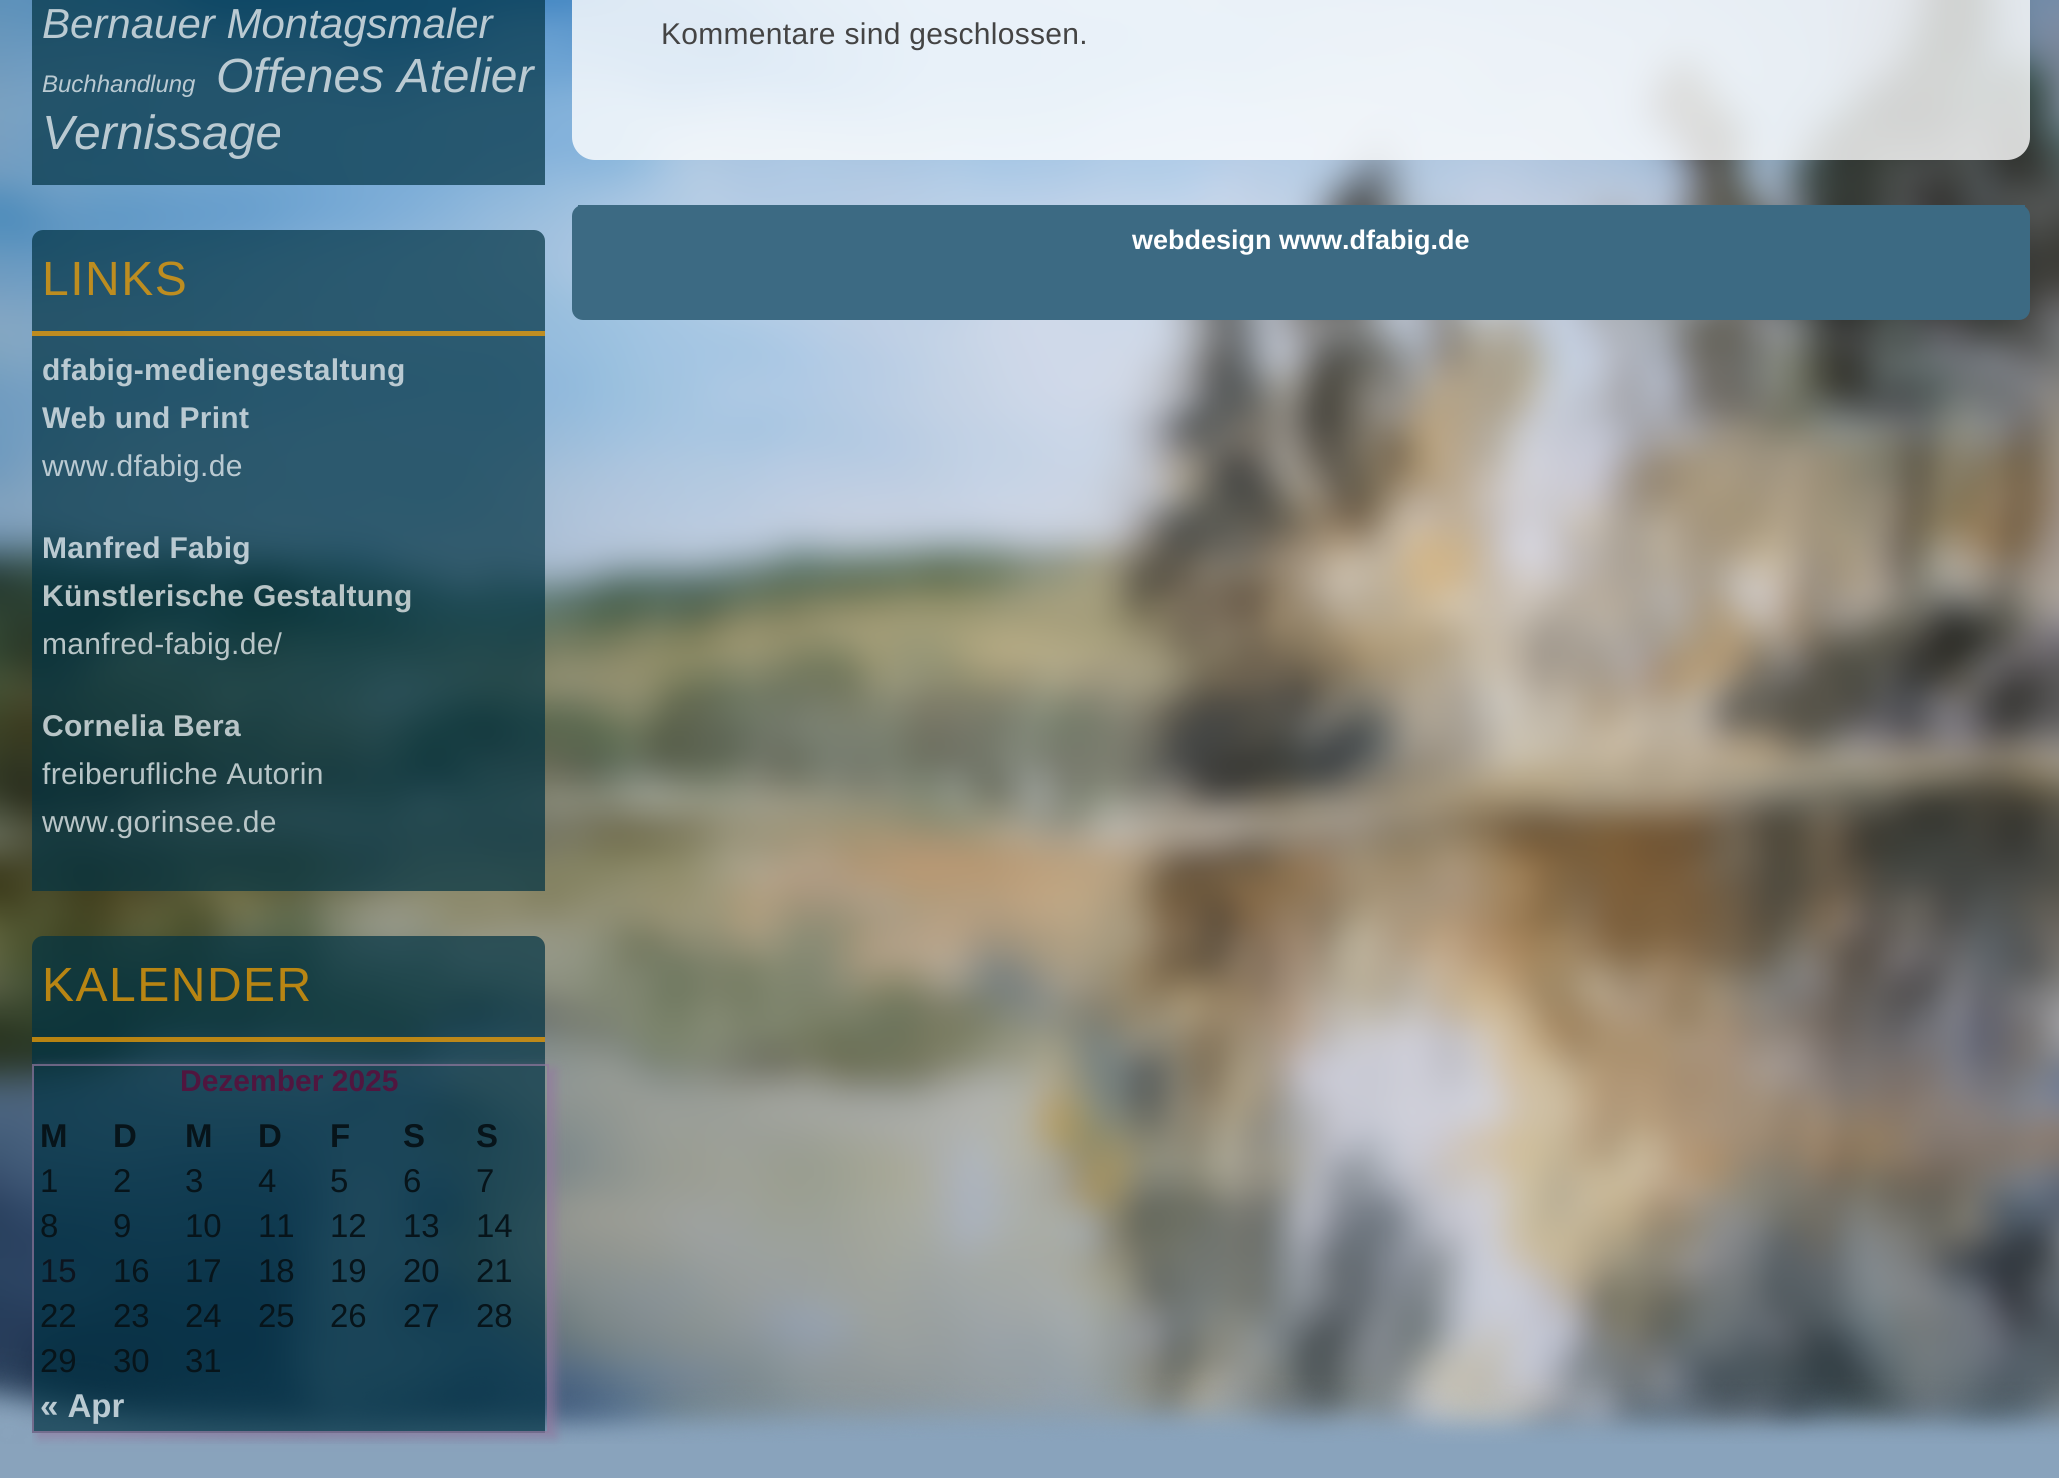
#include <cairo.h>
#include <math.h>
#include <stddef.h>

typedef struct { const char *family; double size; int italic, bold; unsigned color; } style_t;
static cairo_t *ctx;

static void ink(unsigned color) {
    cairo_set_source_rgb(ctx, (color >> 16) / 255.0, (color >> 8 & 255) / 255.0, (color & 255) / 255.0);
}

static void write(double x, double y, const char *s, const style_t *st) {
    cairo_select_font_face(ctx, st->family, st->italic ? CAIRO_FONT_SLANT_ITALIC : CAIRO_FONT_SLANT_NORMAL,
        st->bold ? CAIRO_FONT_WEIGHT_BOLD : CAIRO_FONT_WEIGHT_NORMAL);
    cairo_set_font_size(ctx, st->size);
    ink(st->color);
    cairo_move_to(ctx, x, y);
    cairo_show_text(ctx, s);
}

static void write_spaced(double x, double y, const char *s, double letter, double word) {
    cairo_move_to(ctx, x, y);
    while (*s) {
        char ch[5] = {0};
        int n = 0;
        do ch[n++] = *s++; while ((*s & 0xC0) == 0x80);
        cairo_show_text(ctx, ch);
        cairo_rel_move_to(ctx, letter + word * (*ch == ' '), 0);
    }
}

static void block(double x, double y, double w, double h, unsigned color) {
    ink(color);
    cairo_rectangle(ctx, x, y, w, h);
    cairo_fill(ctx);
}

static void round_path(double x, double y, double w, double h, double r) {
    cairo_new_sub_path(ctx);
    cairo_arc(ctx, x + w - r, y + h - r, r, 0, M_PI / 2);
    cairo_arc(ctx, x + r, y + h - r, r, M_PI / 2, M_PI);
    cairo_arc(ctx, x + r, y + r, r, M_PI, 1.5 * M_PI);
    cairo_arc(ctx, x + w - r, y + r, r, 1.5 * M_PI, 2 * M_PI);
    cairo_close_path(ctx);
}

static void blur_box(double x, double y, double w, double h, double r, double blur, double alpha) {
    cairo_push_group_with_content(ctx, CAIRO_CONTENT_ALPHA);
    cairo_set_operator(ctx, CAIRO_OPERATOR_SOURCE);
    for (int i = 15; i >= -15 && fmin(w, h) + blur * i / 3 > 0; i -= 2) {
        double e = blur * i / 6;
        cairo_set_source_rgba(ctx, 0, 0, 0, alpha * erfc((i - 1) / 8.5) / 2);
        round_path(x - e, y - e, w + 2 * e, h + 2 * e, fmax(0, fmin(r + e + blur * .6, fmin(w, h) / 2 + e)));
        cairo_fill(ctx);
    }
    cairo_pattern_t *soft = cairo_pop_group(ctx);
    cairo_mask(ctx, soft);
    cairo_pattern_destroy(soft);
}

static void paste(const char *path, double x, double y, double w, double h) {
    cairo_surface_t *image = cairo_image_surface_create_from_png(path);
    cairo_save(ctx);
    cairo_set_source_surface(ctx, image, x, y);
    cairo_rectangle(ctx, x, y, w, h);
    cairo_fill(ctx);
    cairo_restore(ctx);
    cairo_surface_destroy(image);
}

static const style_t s1 = {"Liberation Sans", 42, 1, 0, 0xbacad2};
static const style_t s2 = {"Liberation Sans", 24, 1, 0, 0xbacad2};
static const style_t s3 = {"Liberation Sans", 48, 1, 0, 0xbacad2};
static const style_t s4 = {"Liberation Sans", 30, 0, 1, 0x50163f};
static const style_t s5 = {"Liberation Sans", 33, 0, 1, 0x07141a};
static const style_t s6 = {"Liberation Sans", 33, 0, 0, 0x07141a};
static const style_t s7 = {"Liberation Sans", 33, 0, 0, 0x0d141e};
static const style_t s8 = {"Liberation Sans", 33, 0, 1, 0xbacad2};
static const style_t s9 = {"Liberation Sans", 27, 0, 1, 0xffffff};

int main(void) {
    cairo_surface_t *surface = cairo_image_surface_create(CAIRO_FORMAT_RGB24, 2059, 1478);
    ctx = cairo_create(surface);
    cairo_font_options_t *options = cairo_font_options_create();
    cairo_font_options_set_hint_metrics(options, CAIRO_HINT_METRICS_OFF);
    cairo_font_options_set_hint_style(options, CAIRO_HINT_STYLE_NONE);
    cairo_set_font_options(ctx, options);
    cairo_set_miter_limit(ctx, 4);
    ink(0x89a3bc);
    cairo_paint(ctx);
    paste("pic1.png", 0, 0, 2059, 1444);
    cairo_set_source_rgba(ctx, 0, 0.2, 0.267, 0.7);
    cairo_rectangle(ctx, 32, 0, 513, 185);
    cairo_fill(ctx);
    write(42, 38, "Bernauer Montagsmaler", &s1);
    write(42, 92, "Buchhandlung", &s2);
    write(216, 92, "Offenes Atelier", &s3);
    write(42, 149, "Vernissage", &s3);
    cairo_set_source_rgba(ctx, 0, 0.2, 0.267, 0.7);
    cairo_new_path(ctx);
    cairo_move_to(ctx, 43, 230);
    cairo_line_to(ctx, 534, 230);
    cairo_curve_to(ctx, 540, 230, 545, 235, 545, 241);
    cairo_line_to(ctx, 545, 891);
    cairo_line_to(ctx, 32, 891);
    cairo_line_to(ctx, 32, 241);
    cairo_curve_to(ctx, 32, 235, 37, 230, 43, 230);
    cairo_close_path(ctx);
    cairo_fill(ctx);
    cairo_set_source_rgba(ctx, 1, 0.647, 0, 0.7);
    cairo_rectangle(ctx, 32, 331, 513, 5);
    cairo_fill(ctx);
    cairo_select_font_face(ctx, "Liberation Sans", CAIRO_FONT_SLANT_NORMAL, CAIRO_FONT_WEIGHT_NORMAL);
    ink(0xbd8d20);
    write_spaced(42, 295, "LINKS", 1.5, 0);
    cairo_select_font_face(ctx, "Liberation Sans", CAIRO_FONT_SLANT_NORMAL, CAIRO_FONT_WEIGHT_BOLD);
    cairo_set_font_size(ctx, 30);
    ink(0xbacad2);
    write_spaced(42, 380, "dfabig-mediengestaltung", 0.3, 0);
    write_spaced(42, 428, "Web und Print", 0.3, 0);
    cairo_select_font_face(ctx, "Liberation Sans", CAIRO_FONT_SLANT_NORMAL, CAIRO_FONT_WEIGHT_NORMAL);
    write_spaced(42, 476, "www.dfabig.de", 0.3, 0);
    cairo_select_font_face(ctx, "Liberation Sans", CAIRO_FONT_SLANT_NORMAL, CAIRO_FONT_WEIGHT_BOLD);
    write_spaced(42, 558, "Manfred Fabig", 0.3, 0);
    ink(0xb8c5c7);
    write_spaced(42, 606, "Künstlerische Gestaltung", 0.3, 0);
    cairo_select_font_face(ctx, "Liberation Sans", CAIRO_FONT_SLANT_NORMAL, CAIRO_FONT_WEIGHT_NORMAL);
    write_spaced(42, 654, "manfred-fabig.de/", 0.3, 0);
    cairo_select_font_face(ctx, "Liberation Sans", CAIRO_FONT_SLANT_NORMAL, CAIRO_FONT_WEIGHT_BOLD);
    write_spaced(42, 736, "Cornelia Bera", 0.3, 0);
    cairo_select_font_face(ctx, "Liberation Sans", CAIRO_FONT_SLANT_NORMAL, CAIRO_FONT_WEIGHT_NORMAL);
    write_spaced(42, 784, "freiberufliche Autorin", 0.3, 0);
    write_spaced(42, 832, "www.gorinsee.de", 0.3, 0);
    cairo_set_source_rgba(ctx, 0, 0.2, 0.267, 0.7);
    cairo_new_path(ctx);
    cairo_move_to(ctx, 43, 936);
    cairo_line_to(ctx, 534, 936);
    cairo_curve_to(ctx, 540, 936, 545, 941, 545, 947);
    cairo_line_to(ctx, 545, 1433);
    cairo_line_to(ctx, 32, 1433);
    cairo_line_to(ctx, 32, 947);
    cairo_curve_to(ctx, 32, 941, 37, 936, 43, 936);
    cairo_close_path(ctx);
    cairo_fill(ctx);
    cairo_set_source_rgba(ctx, 1, 0.647, 0, 0.7);
    cairo_rectangle(ctx, 32, 1037, 513, 5);
    cairo_fill(ctx);
    cairo_set_font_size(ctx, 48);
    ink(0xb88513);
    write_spaced(42, 1001, "KALENDER", 1.5, 0);
    cairo_save(ctx);
    cairo_rectangle(ctx, 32, 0, 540, 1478);
    cairo_clip(ctx);
    cairo_set_fill_rule(ctx, CAIRO_FILL_RULE_EVEN_ODD);
    cairo_new_path(ctx);
    cairo_move_to(ctx, 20, 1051);
    cairo_line_to(ctx, 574, 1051);
    cairo_line_to(ctx, 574, 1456);
    cairo_line_to(ctx, 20, 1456);
    cairo_close_path(ctx);
    cairo_move_to(ctx, 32, 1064);
    cairo_line_to(ctx, 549, 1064);
    cairo_line_to(ctx, 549, 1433);
    cairo_line_to(ctx, 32, 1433);
    cairo_close_path(ctx);
    cairo_clip(ctx);
    ink(0x93789f);
    blur_box(38, 1069, 518, 369, 0, 5.5, 0.7);
    cairo_restore(ctx);
    cairo_rectangle(ctx, 33, 1065, 515, 367);
    cairo_set_source_rgba(ctx, 0.576, 0.471, 0.624, 0.7);
    cairo_stroke(ctx);
    write(180, 1091, "Dezember 2025", &s4);
    write(40, 1147, "M", &s5);
    write(113, 1147, "D", &s5);
    write(185, 1147, "M", &s5);
    write(258, 1147, "D", &s5);
    write(330, 1147, "F", &s5);
    write(403, 1147, "S", &s5);
    write(476, 1147, "S", &s5);
    write(40, 1192, "1", &s6);
    write(113, 1192, "2", &s6);
    write(185, 1192, "3", &s6);
    write(258, 1192, "4", &s6);
    write(330, 1192, "5", &s6);
    write(403, 1192, "6", &s6);
    write(476, 1192, "7", &s6);
    write(40, 1237, "8", &s6);
    write(113, 1237, "9", &s6);
    write(185, 1237, "10", &s6);
    write(258, 1237, "11", &s6);
    write(330, 1237, "12", &s6);
    write(403, 1237, "13", &s6);
    write(476, 1237, "14", &s6);
    write(40, 1282, "15", &s7);
    write(113, 1282, "16", &s6);
    write(185, 1282, "17", &s6);
    write(258, 1282, "18", &s6);
    write(330, 1282, "19", &s6);
    write(403, 1282, "20", &s6);
    write(476, 1282, "21", &s6);
    write(40, 1327, "22", &s6);
    write(113, 1327, "23", &s6);
    write(185, 1327, "24", &s6);
    write(258, 1327, "25", &s6);
    write(330, 1327, "26", &s6);
    write(403, 1327, "27", &s6);
    write(476, 1327, "28", &s6);
    write(40, 1372, "29", &s6);
    write(113, 1372, "30", &s6);
    write(185, 1372, "31", &s6);
    write(40, 1417, "« Apr", &s8);
    cairo_set_source_rgba(ctx, 1, 1, 1, 0.8);
    round_path(572, -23, 1458, 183, 23);
    cairo_fill(ctx);
    cairo_select_font_face(ctx, "Liberation Sans", CAIRO_FONT_SLANT_NORMAL, CAIRO_FONT_WEIGHT_NORMAL);
    cairo_set_font_size(ctx, 30);
    ink(0x444444);
    write_spaced(661, 44, "Kommentare sind geschlossen.", 0.3, 0);
    ink(0x3c6a83);
    round_path(572, 205, 1458, 115, 11);
    cairo_fill(ctx);
    block(578, 205, 1447, 2, 0x3c6a83);
    write(1132, 249, "webdesign www.dfabig.de", &s9);
    cairo_surface_write_to_png(surface, "screenshot.png");
    cairo_font_options_destroy(options);
    cairo_destroy(ctx);
    cairo_surface_destroy(surface);
    return 0;
}
